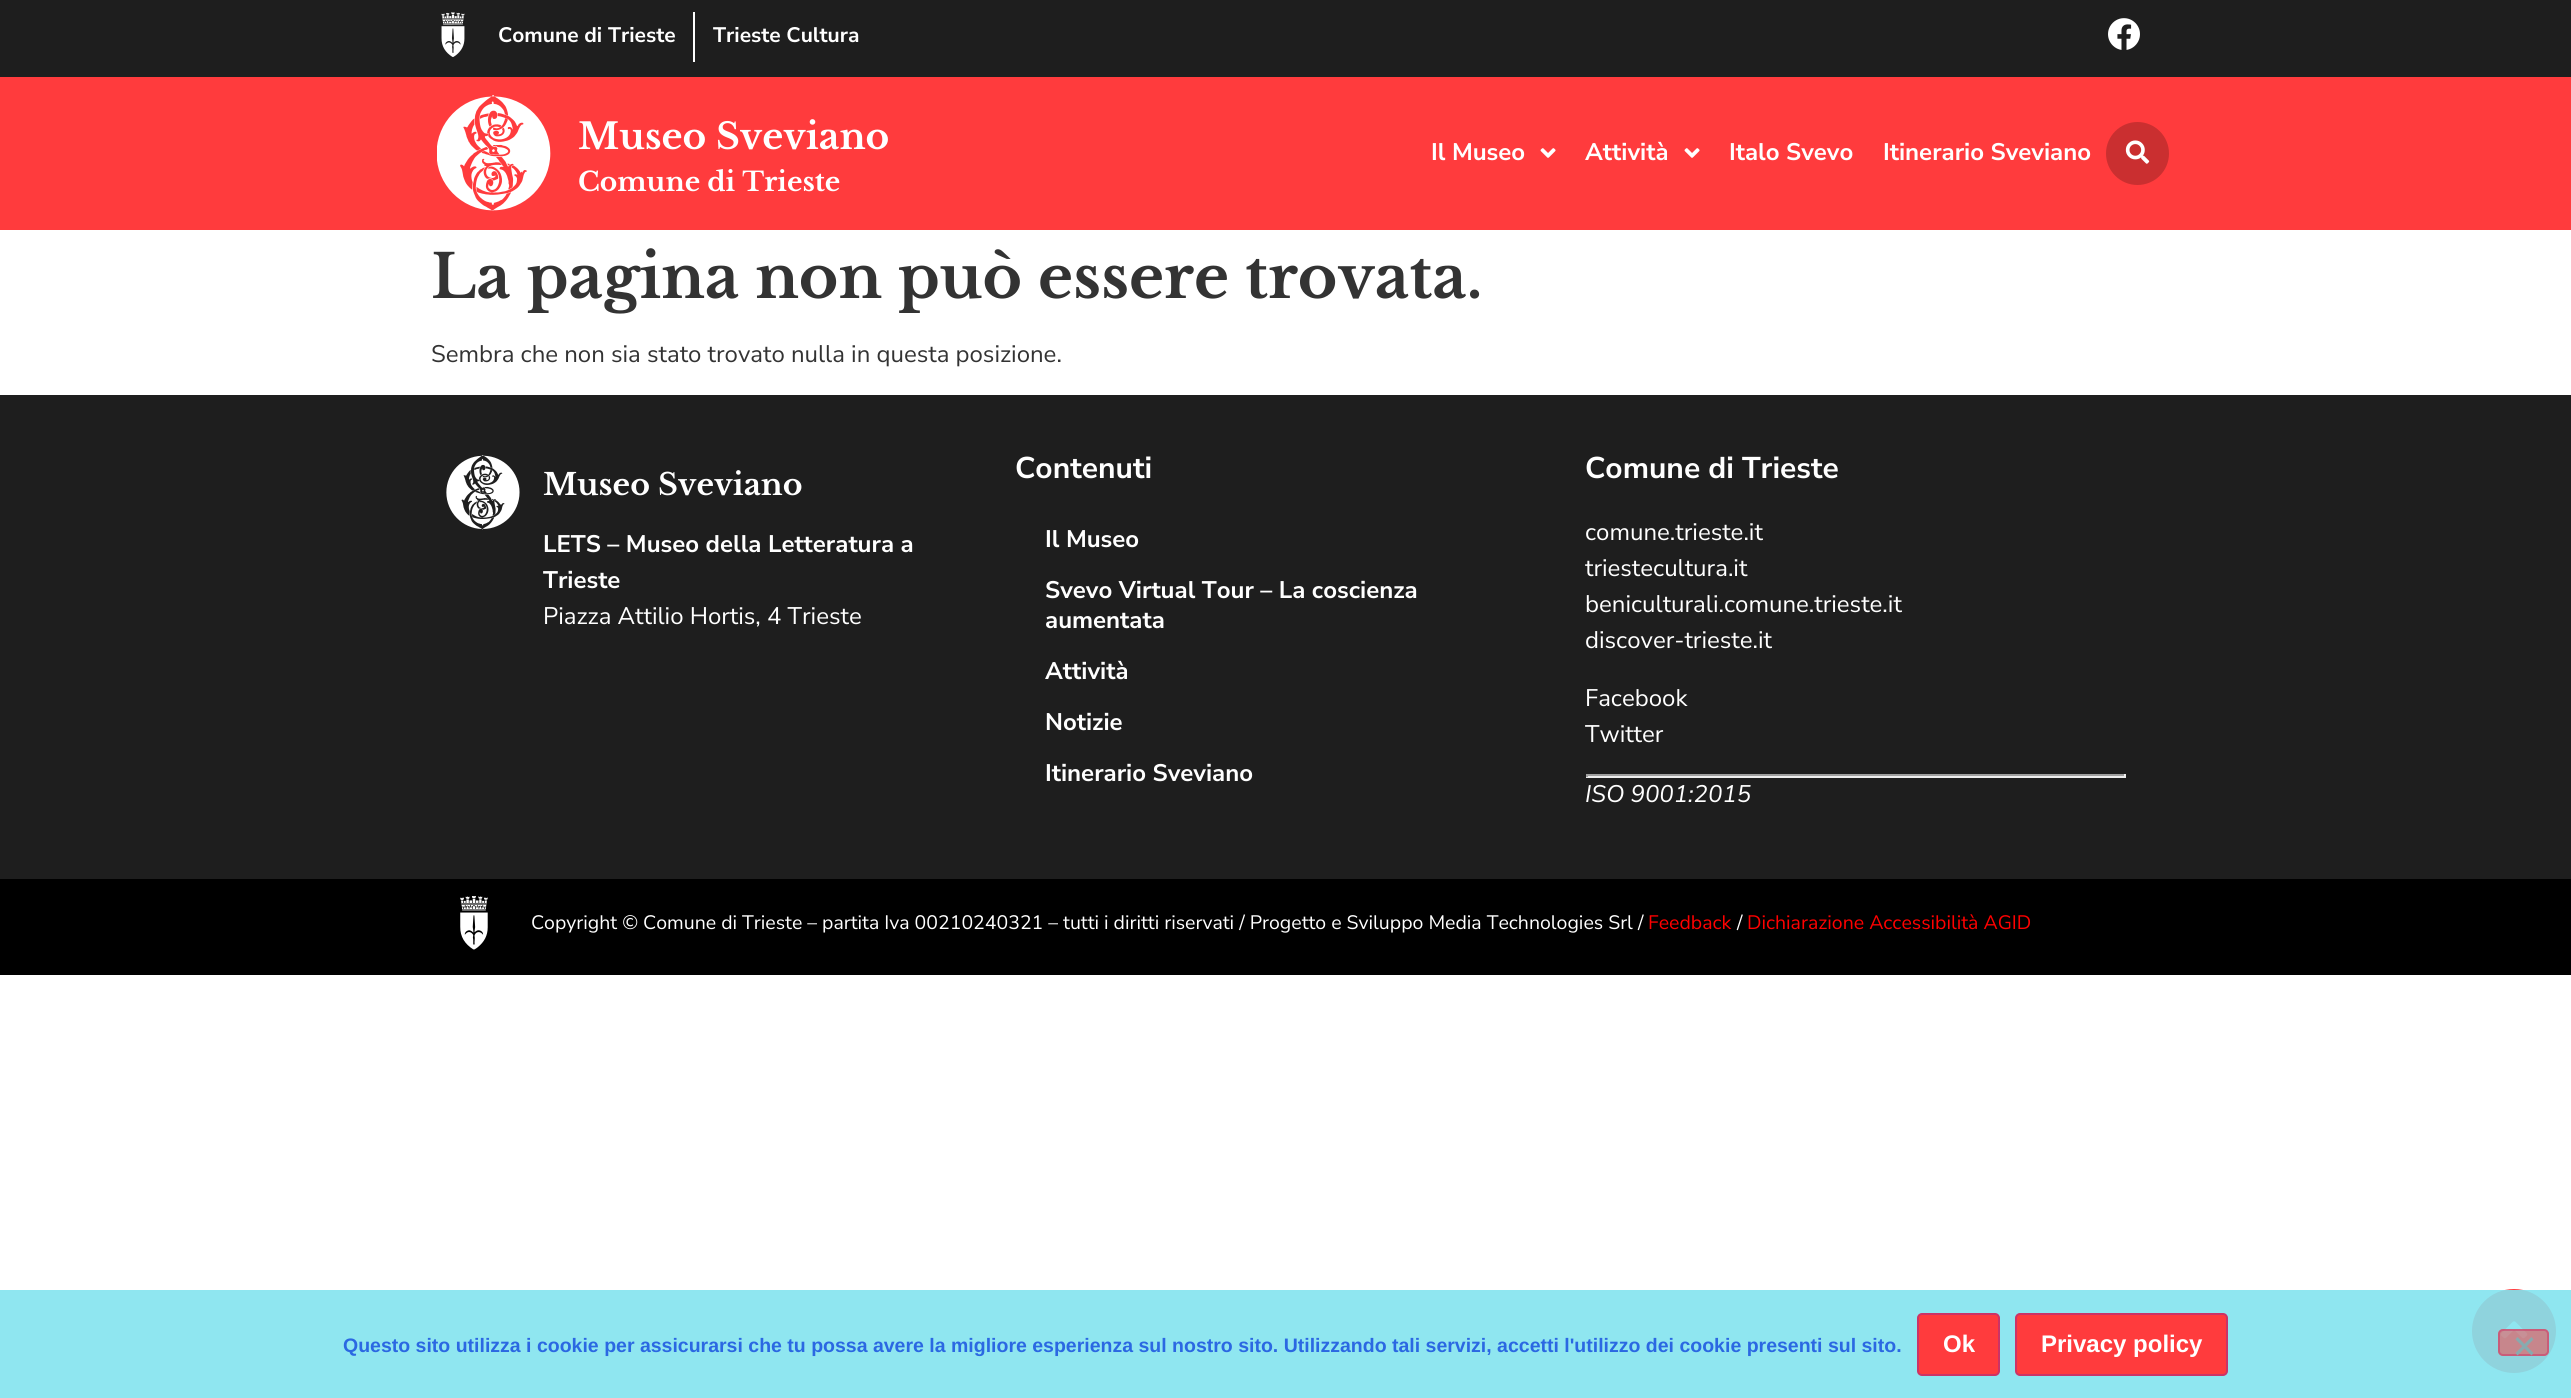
#include <cairo.h>
#include <math.h>
#include <stddef.h>

typedef struct { const char *family; double size; int italic, bold; unsigned color; } style_t;
static cairo_t *ctx;

static void ink(unsigned color) {
    cairo_set_source_rgb(ctx, (color >> 16) / 255.0, (color >> 8 & 255) / 255.0, (color & 255) / 255.0);
}

static void write(double x, double y, const char *s, const style_t *st) {
    cairo_select_font_face(ctx, st->family, st->italic ? CAIRO_FONT_SLANT_ITALIC : CAIRO_FONT_SLANT_NORMAL,
        st->bold ? CAIRO_FONT_WEIGHT_BOLD : CAIRO_FONT_WEIGHT_NORMAL);
    cairo_set_font_size(ctx, st->size);
    ink(st->color);
    cairo_move_to(ctx, x, y);
    cairo_show_text(ctx, s);
}

static void block(double x, double y, double w, double h, unsigned color) {
    ink(color);
    cairo_rectangle(ctx, x, y, w, h);
    cairo_fill(ctx);
}

static void round_path(double x, double y, double w, double h, double r) {
    cairo_new_sub_path(ctx);
    cairo_arc(ctx, x + w - r, y + h - r, r, 0, M_PI / 2);
    cairo_arc(ctx, x + r, y + h - r, r, M_PI / 2, M_PI);
    cairo_arc(ctx, x + r, y + r, r, M_PI, 1.5 * M_PI);
    cairo_arc(ctx, x + w - r, y + r, r, 1.5 * M_PI, 2 * M_PI);
    cairo_close_path(ctx);
}

static void paste(const char *path, double x, double y, double w, double h) {
    cairo_surface_t *image = cairo_image_surface_create_from_png(path);
    cairo_save(ctx);
    cairo_set_source_surface(ctx, image, x, y);
    cairo_rectangle(ctx, x, y, w, h);
    cairo_fill(ctx);
    cairo_restore(ctx);
    cairo_surface_destroy(image);
}

static const style_t s1 = {"Nunito Sans", 21, 0, 1, 0xffffff};
static const style_t s2 = {"Libre Baskerville", 36, 0, 1, 0xffffff};
static const style_t s3 = {"Libre Baskerville", 26.5, 0, 1, 0xffffff};
static const style_t s4 = {"Nunito Sans", 24, 0, 1, 0xffffff};
static const style_t s5 = {"Libre Baskerville", 60, 0, 1, 0x333333};
static const style_t s6 = {"Nunito Sans", 24, 0, 0, 0x333333};
static const style_t s7 = {"Libre Baskerville", 30, 0, 1, 0xffffff};
static const style_t s8 = {"Nunito Sans", 24, 0, 0, 0xffffff};
static const style_t s9 = {"Nunito Sans", 30, 0, 1, 0xffffff};
static const style_t s10 = {"Nunito Sans", 24, 1, 0, 0xffffff};
static const style_t s11 = {"Nunito Sans", 19.5, 0, 0, 0xffffff};
static const style_t s12 = {"Nunito Sans", 19.5, 0, 0, 0xff0000};
static const style_t s13 = {"Liberation Sans", 19.5, 0, 1, 0x2b68e2};
static const style_t s14 = {"Liberation Sans", 24, 0, 1, 0xffffff};

int main(void) {
    cairo_surface_t *surface = cairo_image_surface_create(CAIRO_FORMAT_RGB24, 2571, 1398);
    ctx = cairo_create(surface);
    cairo_font_options_t *options = cairo_font_options_create();
    cairo_font_options_set_hint_metrics(options, CAIRO_HINT_METRICS_OFF);
    cairo_font_options_set_hint_style(options, CAIRO_HINT_STYLE_NONE);
    cairo_set_font_options(ctx, options);
    cairo_set_miter_limit(ctx, 4);
    ink(0xffffff);
    cairo_paint(ctx);
    block(0, 0, 2571, 77, 0x1e1e1e);
    block(693, 12, 2, 50, 0xffffff);
    paste("pic1.png", 441, 12, 24, 45);
    write(498, 42, "Comune di Trieste", &s1);
    write(713, 42, "Trieste Cultura", &s1);
    paste("pic2.png", 2108, 18, 32, 32);
    block(0, 77, 2571, 153, 0xff3b3d);
    paste("pic3.png", 437, 95, 114, 116);
    write(578, 149, "Museo Sveviano", &s2);
    write(578, 191, "Comune di Trieste", &s3);
    write(1431, 160, "Il Museo", &s4);
    paste("pic4.png", 1540, 148, 16, 10);
    write(1585, 160, "Attività", &s4);
    paste("pic4.png", 1684, 148, 16, 10);
    write(1729, 160, "Italo Svevo", &s4);
    write(1883, 160, "Itinerario Sveviano", &s4);
    ink(0xca2f30);
    cairo_new_path(ctx);
    cairo_arc(ctx, 2137.5, 153.5, 31.5, 0, 2 * M_PI);
    cairo_fill(ctx);
    paste("pic5.png", 2125, 140, 25, 24);
    write(431, 298, "La pagina non può essere trovata.", &s5);
    write(431, 362, "Sembra che non sia stato trovato nulla in questa posizione.", &s6);
    block(0, 395, 2571, 484, 0x1e1e1e);
    paste("pic6.png", 446, 455, 74, 75);
    write(543, 495, "Museo Sveviano", &s7);
    write(543, 552, "LETS – Museo della Letteratura a", &s4);
    write(543, 588, "Trieste", &s4);
    write(543, 624, "Piazza Attilio Hortis, 4 Trieste", &s8);
    ink(0xff3b3d);
    cairo_new_path(ctx);
    cairo_arc(ctx, 2514, 1331, 42, 0, 2 * M_PI);
    cairo_fill(ctx);
    paste("pic7.png", 2501, 1321, 27, 18);
    write(1015, 478, "Contenuti", &s9);
    write(1045, 547, "Il Museo", &s4);
    write(1045, 598, "Svevo Virtual Tour – La coscienza", &s4);
    write(1045, 628, "aumentata", &s4);
    write(1045, 679, "Attività", &s4);
    write(1045, 730, "Notizie", &s4);
    write(1045, 781, "Itinerario Sveviano", &s4);
    write(1585, 478, "Comune di Trieste", &s9);
    write(1585, 540, "comune.trieste.it", &s8);
    write(1585, 576, "triestecultura.it", &s8);
    write(1585, 612, "beniculturali.comune.trieste.it", &s8);
    write(1585, 648, "discover-trieste.it", &s8);
    write(1585, 706, "Facebook", &s8);
    write(1585, 742, "Twitter", &s8);
    block(1586, 774, 540, 2, 0x9f9f9f);
    block(2124, 774, 2, 3, 0xeeeeee);
    block(1586, 776, 540, 2, 0xeeeeee);
    block(1586, 774, 2, 3, 0x9f9f9f);
    write(1585, 802, "ISO 9001:2015", &s10);
    block(0, 879, 2571, 96, 0x000000);
    paste("pic8.png", 460, 896, 28, 54);
    write(531, 929, "Copyright © Comune di Trieste – partita Iva 00210240321 – tutti i diritti riservati / Progetto e Sviluppo Media Technologies Srl /", &s11);
    write(1648, 929, "Feedback", &s12);
    write(1737, 929, "/", &s11);
    write(1747, 929, "Dichiarazione Accessibilità AGID", &s12);
    cairo_set_source_rgba(ctx, 0.514, 0.894, 0.937, 0.9);
    cairo_rectangle(ctx, 0, 1290, 2571, 108);
    cairo_fill(ctx);
    write(343, 1352, "Questo sito utilizza i cookie per assicurarsi che tu possa avere la migliore esperienza sul nostro sito. Utilizzando tali servizi, accetti l'utilizzo dei cookie presenti sul sito.", &s13);
    ink(0xff3b3d);
    round_path(1918, 1314, 81, 61, 4);
    cairo_fill_preserve(ctx);
    ink(0xcc3366);
    cairo_stroke(ctx);
    write(1943, 1352, "Ok", &s14);
    ink(0xff3b3d);
    round_path(2016, 1314, 211, 61, 4);
    cairo_fill_preserve(ctx);
    ink(0xcc3366);
    cairo_stroke(ctx);
    write(2041, 1352, "Privacy policy", &s14);
    cairo_set_source_rgba(ctx, 1, 0.231, 0.239, 0.5);
    round_path(2498, 1329, 51, 27, 5);
    cairo_fill(ctx);
    round_path(2499, 1330, 49, 25, 4);
    cairo_set_source_rgba(ctx, 0.8, 0.2, 0.4, 0.5);
    cairo_stroke(ctx);
    ink(0x88aaaf);
    cairo_new_path(ctx);
    cairo_move_to(ctx, 2531.5, 1337);
    cairo_line_to(ctx, 2533.5, 1339.5);
    cairo_line_to(ctx, 2517.5, 1355.5);
    cairo_line_to(ctx, 2515.5, 1353);
    cairo_close_path(ctx);
    cairo_fill(ctx);
    cairo_new_path(ctx);
    cairo_move_to(ctx, 2515.5, 1339.5);
    cairo_line_to(ctx, 2517.5, 1337);
    cairo_line_to(ctx, 2533.5, 1353);
    cairo_line_to(ctx, 2531.5, 1355.5);
    cairo_close_path(ctx);
    cairo_fill(ctx);
    cairo_surface_write_to_png(surface, "screenshot.png");
    cairo_font_options_destroy(options);
    cairo_destroy(ctx);
    cairo_surface_destroy(surface);
    return 0;
}
